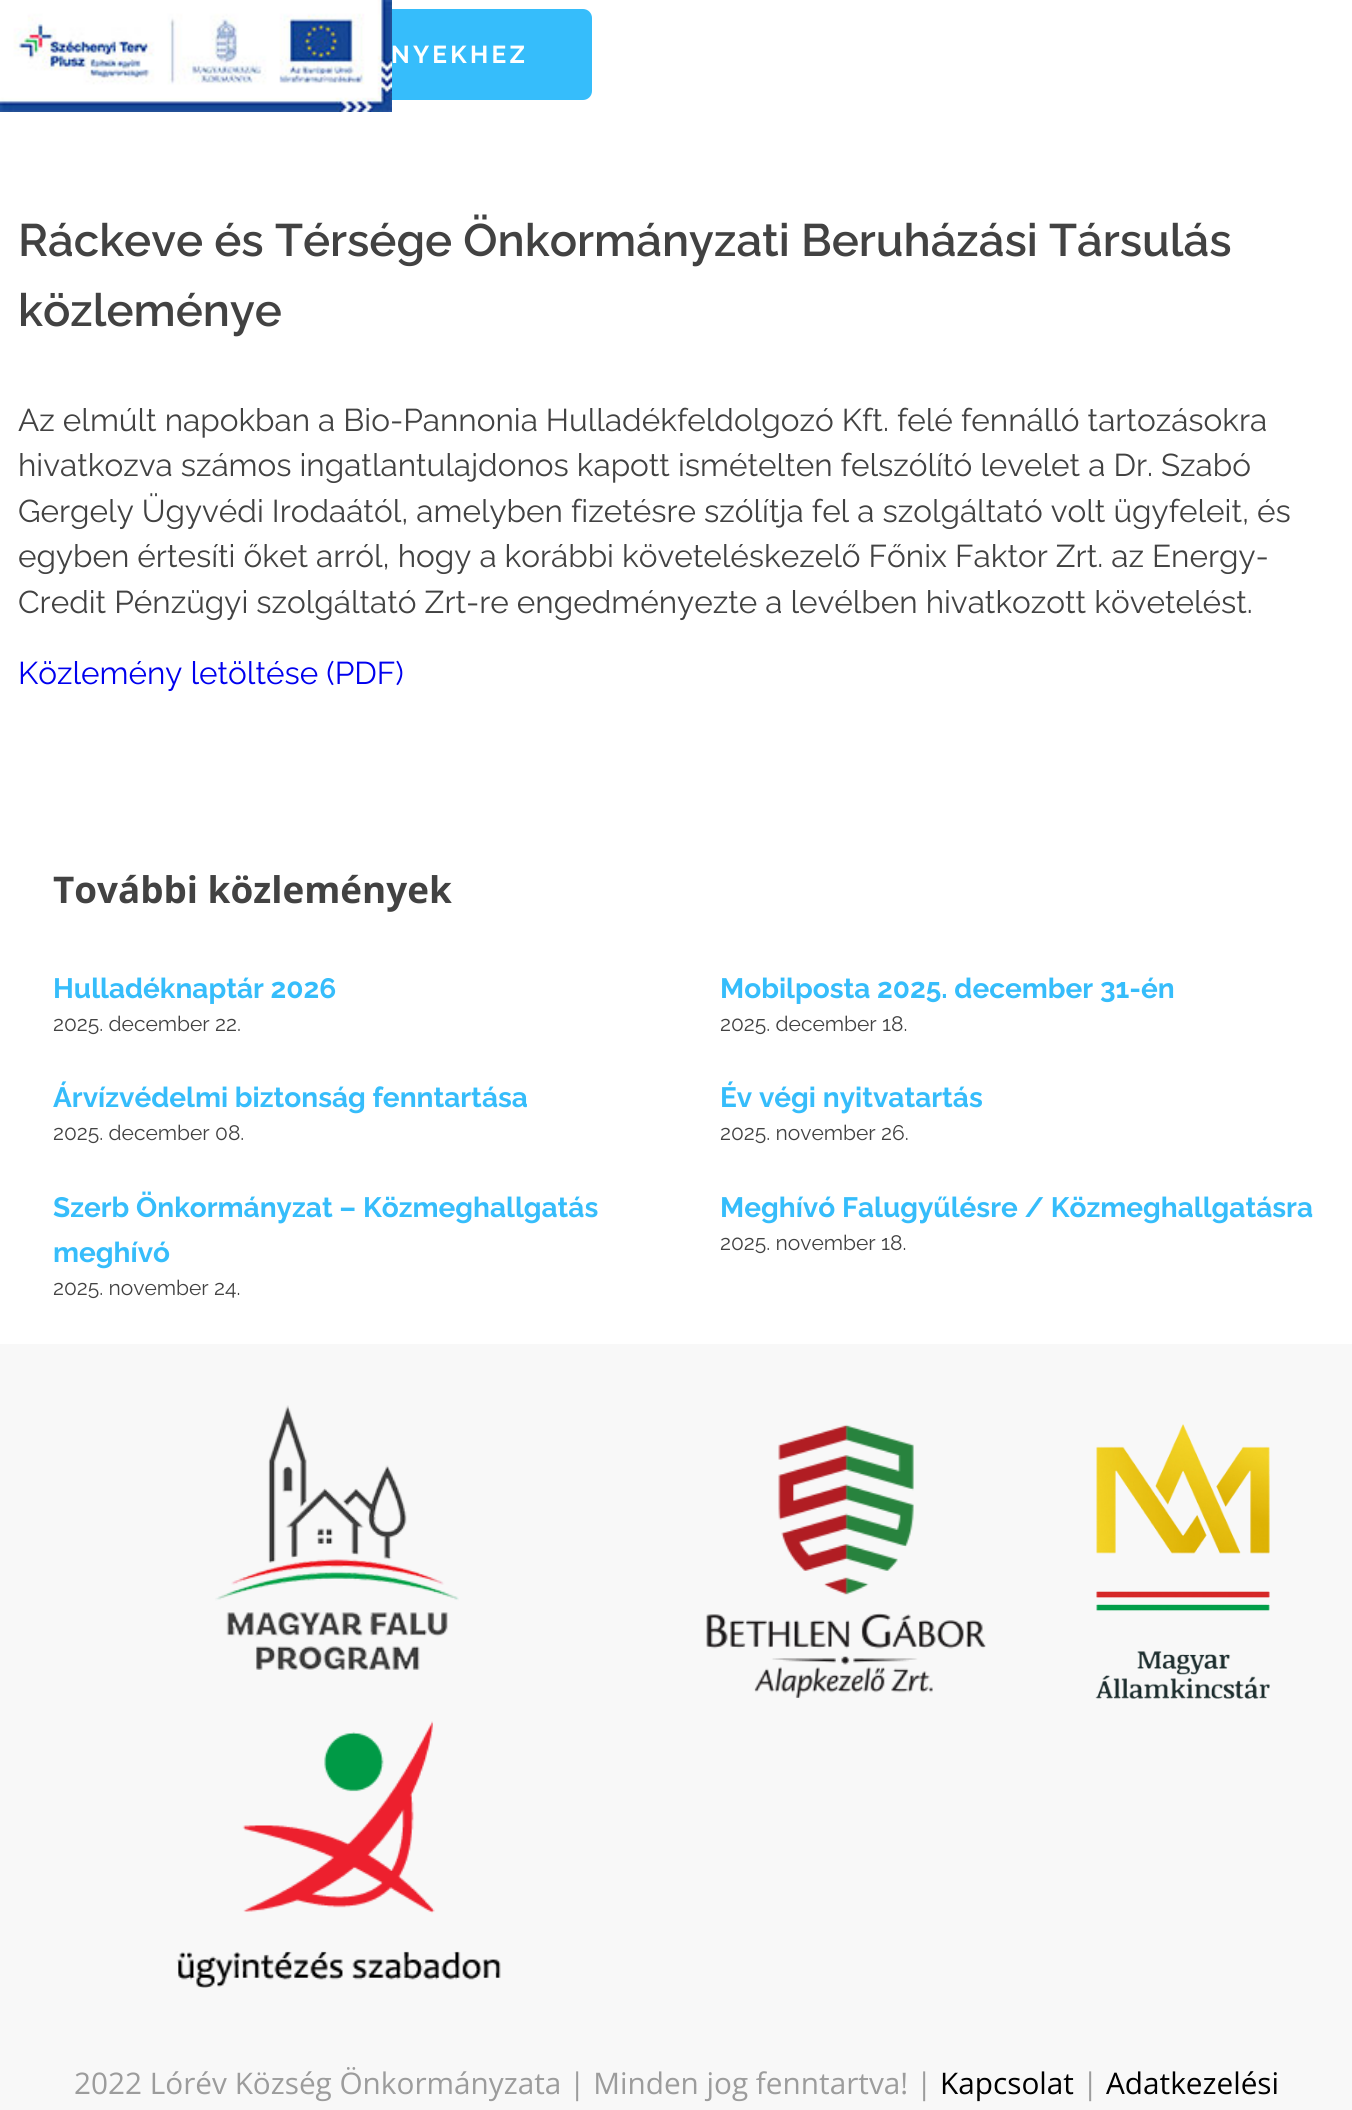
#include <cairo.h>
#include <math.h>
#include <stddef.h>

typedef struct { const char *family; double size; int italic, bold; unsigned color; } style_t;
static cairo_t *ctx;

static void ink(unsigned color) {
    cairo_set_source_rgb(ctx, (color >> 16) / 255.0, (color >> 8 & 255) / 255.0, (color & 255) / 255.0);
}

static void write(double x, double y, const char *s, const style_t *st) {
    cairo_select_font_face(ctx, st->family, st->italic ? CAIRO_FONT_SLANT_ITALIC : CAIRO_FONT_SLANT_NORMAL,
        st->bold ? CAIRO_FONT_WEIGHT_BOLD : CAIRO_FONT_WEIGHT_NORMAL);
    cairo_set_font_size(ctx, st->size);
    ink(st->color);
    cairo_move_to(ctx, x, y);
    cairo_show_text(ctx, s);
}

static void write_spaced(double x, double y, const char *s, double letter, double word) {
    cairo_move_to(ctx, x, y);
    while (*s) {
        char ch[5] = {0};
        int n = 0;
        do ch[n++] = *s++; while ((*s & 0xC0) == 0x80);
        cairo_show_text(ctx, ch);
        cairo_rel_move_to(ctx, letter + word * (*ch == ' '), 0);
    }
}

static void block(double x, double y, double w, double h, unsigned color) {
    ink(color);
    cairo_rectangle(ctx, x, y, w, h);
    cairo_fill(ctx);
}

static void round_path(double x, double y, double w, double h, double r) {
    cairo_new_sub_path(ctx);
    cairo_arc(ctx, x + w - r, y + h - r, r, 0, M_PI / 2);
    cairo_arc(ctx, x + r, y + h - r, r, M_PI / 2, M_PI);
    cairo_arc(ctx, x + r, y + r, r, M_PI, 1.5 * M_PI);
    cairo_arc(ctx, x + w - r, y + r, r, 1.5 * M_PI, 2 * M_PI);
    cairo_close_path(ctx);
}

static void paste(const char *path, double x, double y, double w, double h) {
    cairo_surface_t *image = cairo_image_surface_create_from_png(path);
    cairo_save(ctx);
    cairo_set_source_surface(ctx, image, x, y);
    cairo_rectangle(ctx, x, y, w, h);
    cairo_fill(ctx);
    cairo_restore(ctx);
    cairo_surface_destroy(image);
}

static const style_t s1 = {"Raleway SemiBold", 45.5, 0, 0, 0x424242};
static const style_t s2 = {"Raleway", 31.5, 0, 0, 0x424242};
static const style_t s3 = {"Raleway", 31.5, 0, 0, 0x0000ee};
static const style_t s4 = {"Open Sans", 36.8, 0, 1, 0x424242};
static const style_t s5 = {"Raleway", 28, 0, 1, 0x36bdfb};
static const style_t s6 = {"Raleway", 21, 0, 0, 0x424242};
static const style_t s7 = {"Open Sans", 29.75, 0, 0, 0x9c9c9c};
static const style_t s8 = {"Open Sans", 29.75, 0, 0, 0x000000};

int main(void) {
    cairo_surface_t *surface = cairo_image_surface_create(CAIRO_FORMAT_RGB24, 1352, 2110);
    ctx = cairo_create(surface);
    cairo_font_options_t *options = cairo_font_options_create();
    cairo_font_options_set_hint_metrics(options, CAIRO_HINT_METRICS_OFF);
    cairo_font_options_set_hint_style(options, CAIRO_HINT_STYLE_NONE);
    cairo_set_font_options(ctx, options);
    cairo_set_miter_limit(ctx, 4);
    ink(0xffffff);
    cairo_paint(ctx);
    ink(0x36bdfb);
    round_path(18, 9, 574, 91, 9);
    cairo_fill(ctx);
    paste("pic1.png", 0, 0, 392, 112);
    cairo_select_font_face(ctx, "Raleway", CAIRO_FONT_SLANT_NORMAL, CAIRO_FONT_WEIGHT_BOLD);
    cairo_set_font_size(ctx, 24.5);
    ink(0xffffff);
    write_spaced(391, 63, "NYEKHEZ", 3.25, 0);
    write(18, 256, "Ráckeve és Térsége Önkormányzati Beruházási Társulás", &s1);
    write(18, 326, "közleménye", &s1);
    write(18, 431, "Az elmúlt napokban a Bio-Pannonia Hulladékfeldolgozó Kft. felé fennálló tartozásokra", &s2);
    write(18, 476, "hivatkozva számos ingatlantulajdonos kapott ismételten felszólító levelet a Dr. Szabó", &s2);
    write(18, 522, "Gergely Ügyvédi Irodaától, amelyben fizetésre szólítja fel a szolgáltató volt ügyfeleit, és", &s2);
    write(18, 567, "egyben értesíti őket arról, hogy a korábbi követeléskezelő Főnix Faktor Zrt. az Energy-", &s2);
    write(18, 613, "Credit Pénzügyi szolgáltató Zrt-re engedményezte a levélben hivatkozott követelést.", &s2);
    write(18, 684, "Közlemény letöltése (PDF)", &s3);
    write(53, 903, "További közlemények", &s4);
    write(53, 998, "Hulladéknaptár 2026", &s5);
    write(53, 1031, "2025. december 22.", &s6);
    write(720, 998, "Mobilposta 2025. december 31-én", &s5);
    write(720, 1031, "2025. december 18.", &s6);
    write(53, 1107, "Árvízvédelmi biztonság fenntartása", &s5);
    write(53, 1140, "2025. december 08.", &s6);
    write(720, 1107, "Év végi nyitvatartás", &s5);
    write(720, 1140, "2025. november 26.", &s6);
    write(53, 1217, "Szerb Önkormányzat – Közmeghallgatás", &s5);
    write(53, 1262, "meghívó", &s5);
    write(53, 1295, "2025. november 24.", &s6);
    write(720, 1217, "Meghívó Falugyűlésre / Közmeghallgatásra", &s5);
    write(720, 1250, "2025. november 18.", &s6);
    block(0, 1344, 1352, 766, 0xf8f8f8);
    paste("pic2.png", 215, 1405, 244, 265);
    paste("pic3.png", 706, 1424, 280, 274);
    paste("pic4.png", 1095, 1424, 175, 275);
    paste("pic5.png", 176, 1721, 325, 267);
    write(74, 2094, "2022 Lórév Község Önkormányzata | Minden jog fenntartva! |", &s7);
    write(940, 2094, "Kapcsolat", &s8);
    write(1082, 2094, "|", &s7);
    write(1106, 2094, "Adatkezelési", &s8);
    cairo_surface_write_to_png(surface, "screenshot.png");
    cairo_font_options_destroy(options);
    cairo_destroy(ctx);
    cairo_surface_destroy(surface);
    return 0;
}
